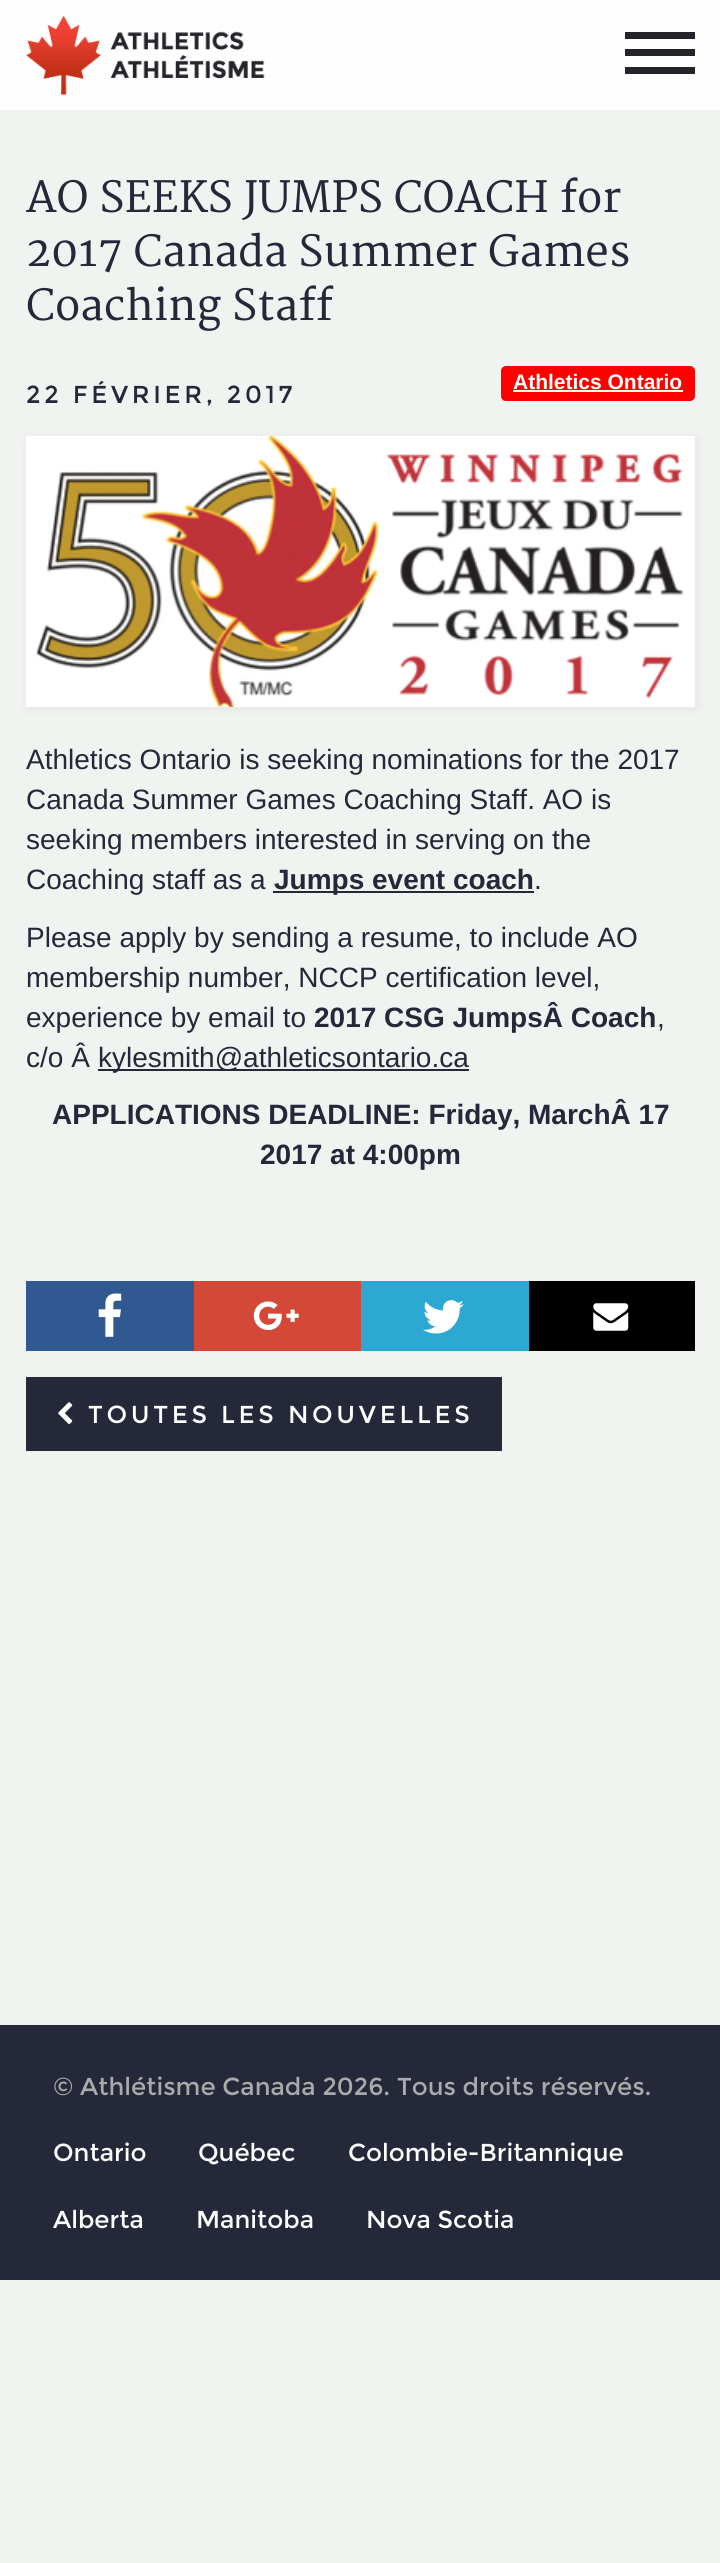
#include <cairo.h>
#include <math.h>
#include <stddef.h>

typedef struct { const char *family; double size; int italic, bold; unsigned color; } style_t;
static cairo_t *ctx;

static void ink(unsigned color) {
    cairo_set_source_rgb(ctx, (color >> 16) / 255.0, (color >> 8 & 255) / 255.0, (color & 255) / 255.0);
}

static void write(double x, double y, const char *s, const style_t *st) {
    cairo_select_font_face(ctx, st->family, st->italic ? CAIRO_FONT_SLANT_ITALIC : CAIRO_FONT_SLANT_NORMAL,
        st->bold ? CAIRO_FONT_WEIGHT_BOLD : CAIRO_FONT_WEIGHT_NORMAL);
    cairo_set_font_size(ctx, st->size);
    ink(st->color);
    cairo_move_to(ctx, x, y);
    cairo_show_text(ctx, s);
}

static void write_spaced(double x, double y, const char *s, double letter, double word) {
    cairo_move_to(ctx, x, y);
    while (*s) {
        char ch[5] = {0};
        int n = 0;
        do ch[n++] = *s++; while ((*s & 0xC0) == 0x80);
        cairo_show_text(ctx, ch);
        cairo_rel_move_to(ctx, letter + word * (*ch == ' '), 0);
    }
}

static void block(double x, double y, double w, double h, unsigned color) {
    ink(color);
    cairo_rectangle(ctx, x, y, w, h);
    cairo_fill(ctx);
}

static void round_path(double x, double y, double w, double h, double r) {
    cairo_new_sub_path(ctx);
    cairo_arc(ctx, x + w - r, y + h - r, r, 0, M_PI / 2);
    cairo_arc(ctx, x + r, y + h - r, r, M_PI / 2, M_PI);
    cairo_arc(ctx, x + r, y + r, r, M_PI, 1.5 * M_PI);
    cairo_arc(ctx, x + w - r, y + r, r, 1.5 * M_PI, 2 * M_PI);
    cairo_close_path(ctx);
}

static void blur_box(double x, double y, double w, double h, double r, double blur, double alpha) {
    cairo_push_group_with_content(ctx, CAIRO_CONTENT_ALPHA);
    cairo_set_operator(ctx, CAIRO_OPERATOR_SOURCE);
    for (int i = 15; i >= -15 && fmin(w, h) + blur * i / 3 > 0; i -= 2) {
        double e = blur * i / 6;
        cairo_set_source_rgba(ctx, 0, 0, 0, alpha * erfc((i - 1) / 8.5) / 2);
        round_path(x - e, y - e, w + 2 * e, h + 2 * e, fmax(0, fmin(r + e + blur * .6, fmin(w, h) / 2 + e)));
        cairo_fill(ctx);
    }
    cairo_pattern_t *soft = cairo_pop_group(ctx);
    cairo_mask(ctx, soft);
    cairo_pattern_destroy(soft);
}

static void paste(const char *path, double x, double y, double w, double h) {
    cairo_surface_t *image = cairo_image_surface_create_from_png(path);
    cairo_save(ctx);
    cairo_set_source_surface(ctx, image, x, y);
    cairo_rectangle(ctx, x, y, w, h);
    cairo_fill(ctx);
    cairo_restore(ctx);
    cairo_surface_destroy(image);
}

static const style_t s1 = {"Merriweather", 42, 0, 0, 0x242838};
static const style_t s2 = {"Liberation Sans", 21, 0, 1, 0xffffff};
static const style_t s3 = {"Liberation Sans", 28, 0, 0, 0x242838};
static const style_t s4 = {"Liberation Sans", 28, 0, 1, 0x242838};
static const style_t s5 = {"Montserrat", 24.5, 0, 0, 0xaaaaaa};
static const style_t s6 = {"Montserrat", 24.5, 0, 0, 0xffffff};

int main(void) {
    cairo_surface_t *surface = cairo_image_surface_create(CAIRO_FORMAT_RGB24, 720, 2563);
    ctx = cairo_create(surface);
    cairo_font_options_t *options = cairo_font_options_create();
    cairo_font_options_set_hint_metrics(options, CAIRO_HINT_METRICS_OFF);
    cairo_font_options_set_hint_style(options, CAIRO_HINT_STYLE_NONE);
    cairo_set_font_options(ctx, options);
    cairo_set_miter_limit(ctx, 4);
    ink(0xf1f3f1);
    cairo_paint(ctx);
    block(0, 0, 720, 110, 0xfefefe);
    paste("pic1.png", 26, 15, 239, 80);
    block(625, 49, 70, 7, 0x24242a);
    block(625, 32, 70, 7, 0x24242a);
    block(625, 67, 70, 7, 0x24242a);
    write(26, 212, "AO SEEKS JUMPS COACH for", &s1);
    write(26, 266, "2017 Canada Summer Games", &s1);
    write(26, 320, "Coaching Staff", &s1);
    cairo_select_font_face(ctx, "Montserrat", CAIRO_FONT_SLANT_NORMAL, CAIRO_FONT_WEIGHT_NORMAL);
    cairo_set_font_size(ctx, 24.5);
    write_spaced(26, 403, "22 FÉVRIER, 2017", 3.7, 0);
    ink(0xfd0100);
    round_path(501, 366, 194, 35, 5);
    cairo_fill(ctx);
    write(513, 389, "Athletics Ontario", &s2);
    block(513, 390, 170, 2, 0xffffff);
    ink(0x000000);
    blur_box(28, 438, 669, 271, 0, 5, 0.06);
    block(26, 436, 669, 271, 0xffffff);
    paste("pic2.png", 35, 435, 649, 272);
    write(26, 769, "Athletics Ontario is seeking nominations for the 2017", &s3);
    write(26, 809, "Canada Summer Games Coaching Staff. AO is", &s3);
    write(26, 849, "seeking members interested in serving on the", &s3);
    write(26, 889, "Coaching staff as a", &s3);
    block(273, 891, 261, 2, 0x242838);
    write(274, 889, "Jumps event coach", &s4);
    write(534, 889, ".", &s3);
    write(26, 947, "Please apply by sending a resume, to include AO", &s3);
    write(26, 987, "membership number, NCCP certification level,", &s3);
    write(26, 1027, "experience by email to", &s3);
    write(314, 1027, "2017 CSG JumpsÂ Coach", &s4);
    write(657, 1027, ",", &s3);
    write(26, 1067, "c/o Â", &s3);
    block(98, 1069, 371, 2, 0x242838);
    write(98, 1067, "kylesmith@athleticsontario.ca", &s3);
    write(52, 1124, "APPLICATIONS DEADLINE: Friday, MarchÂ 17", &s4);
    write(260, 1164, "2017 at 4:00pm", &s4);
    block(26, 1281, 168, 70, 0x305891);
    paste("pic3.png", 98, 1293, 24, 44);
    block(194, 1281, 167, 70, 0xd34836);
    paste("pic4.png", 253, 1301, 46, 30);
    block(361, 1281, 168, 70, 0x2ca8d2);
    paste("pic5.png", 423, 1300, 41, 34);
    block(529, 1281, 166, 70, 0x000000);
    paste("pic6.png", 593, 1303, 36, 28);
    block(26, 1377, 476, 74, 0x242838);
    paste("pic7.png", 58, 1402, 15, 23);
    cairo_select_font_face(ctx, "Montserrat", CAIRO_FONT_SLANT_NORMAL, CAIRO_FONT_WEIGHT_NORMAL);
    cairo_set_font_size(ctx, 24.5);
    ink(0xffffff);
    write_spaced(88, 1423, "TOUTES LES NOUVELLES", 3.7, 0);
    block(0, 2025, 720, 255, 0x242838);
    write(53, 2095, "© Athlétisme Canada 2026. Tous droits réservés.", &s5);
    write(53, 2161, "Ontario", &s6);
    write(198, 2161, "Québec", &s6);
    write(348, 2161, "Colombie-Britannique", &s6);
    write(53, 2228, "Alberta", &s6);
    write(196, 2228, "Manitoba", &s6);
    write(366, 2228, "Nova Scotia", &s6);
    cairo_surface_write_to_png(surface, "screenshot.png");
    cairo_font_options_destroy(options);
    cairo_destroy(ctx);
    cairo_surface_destroy(surface);
    return 0;
}
